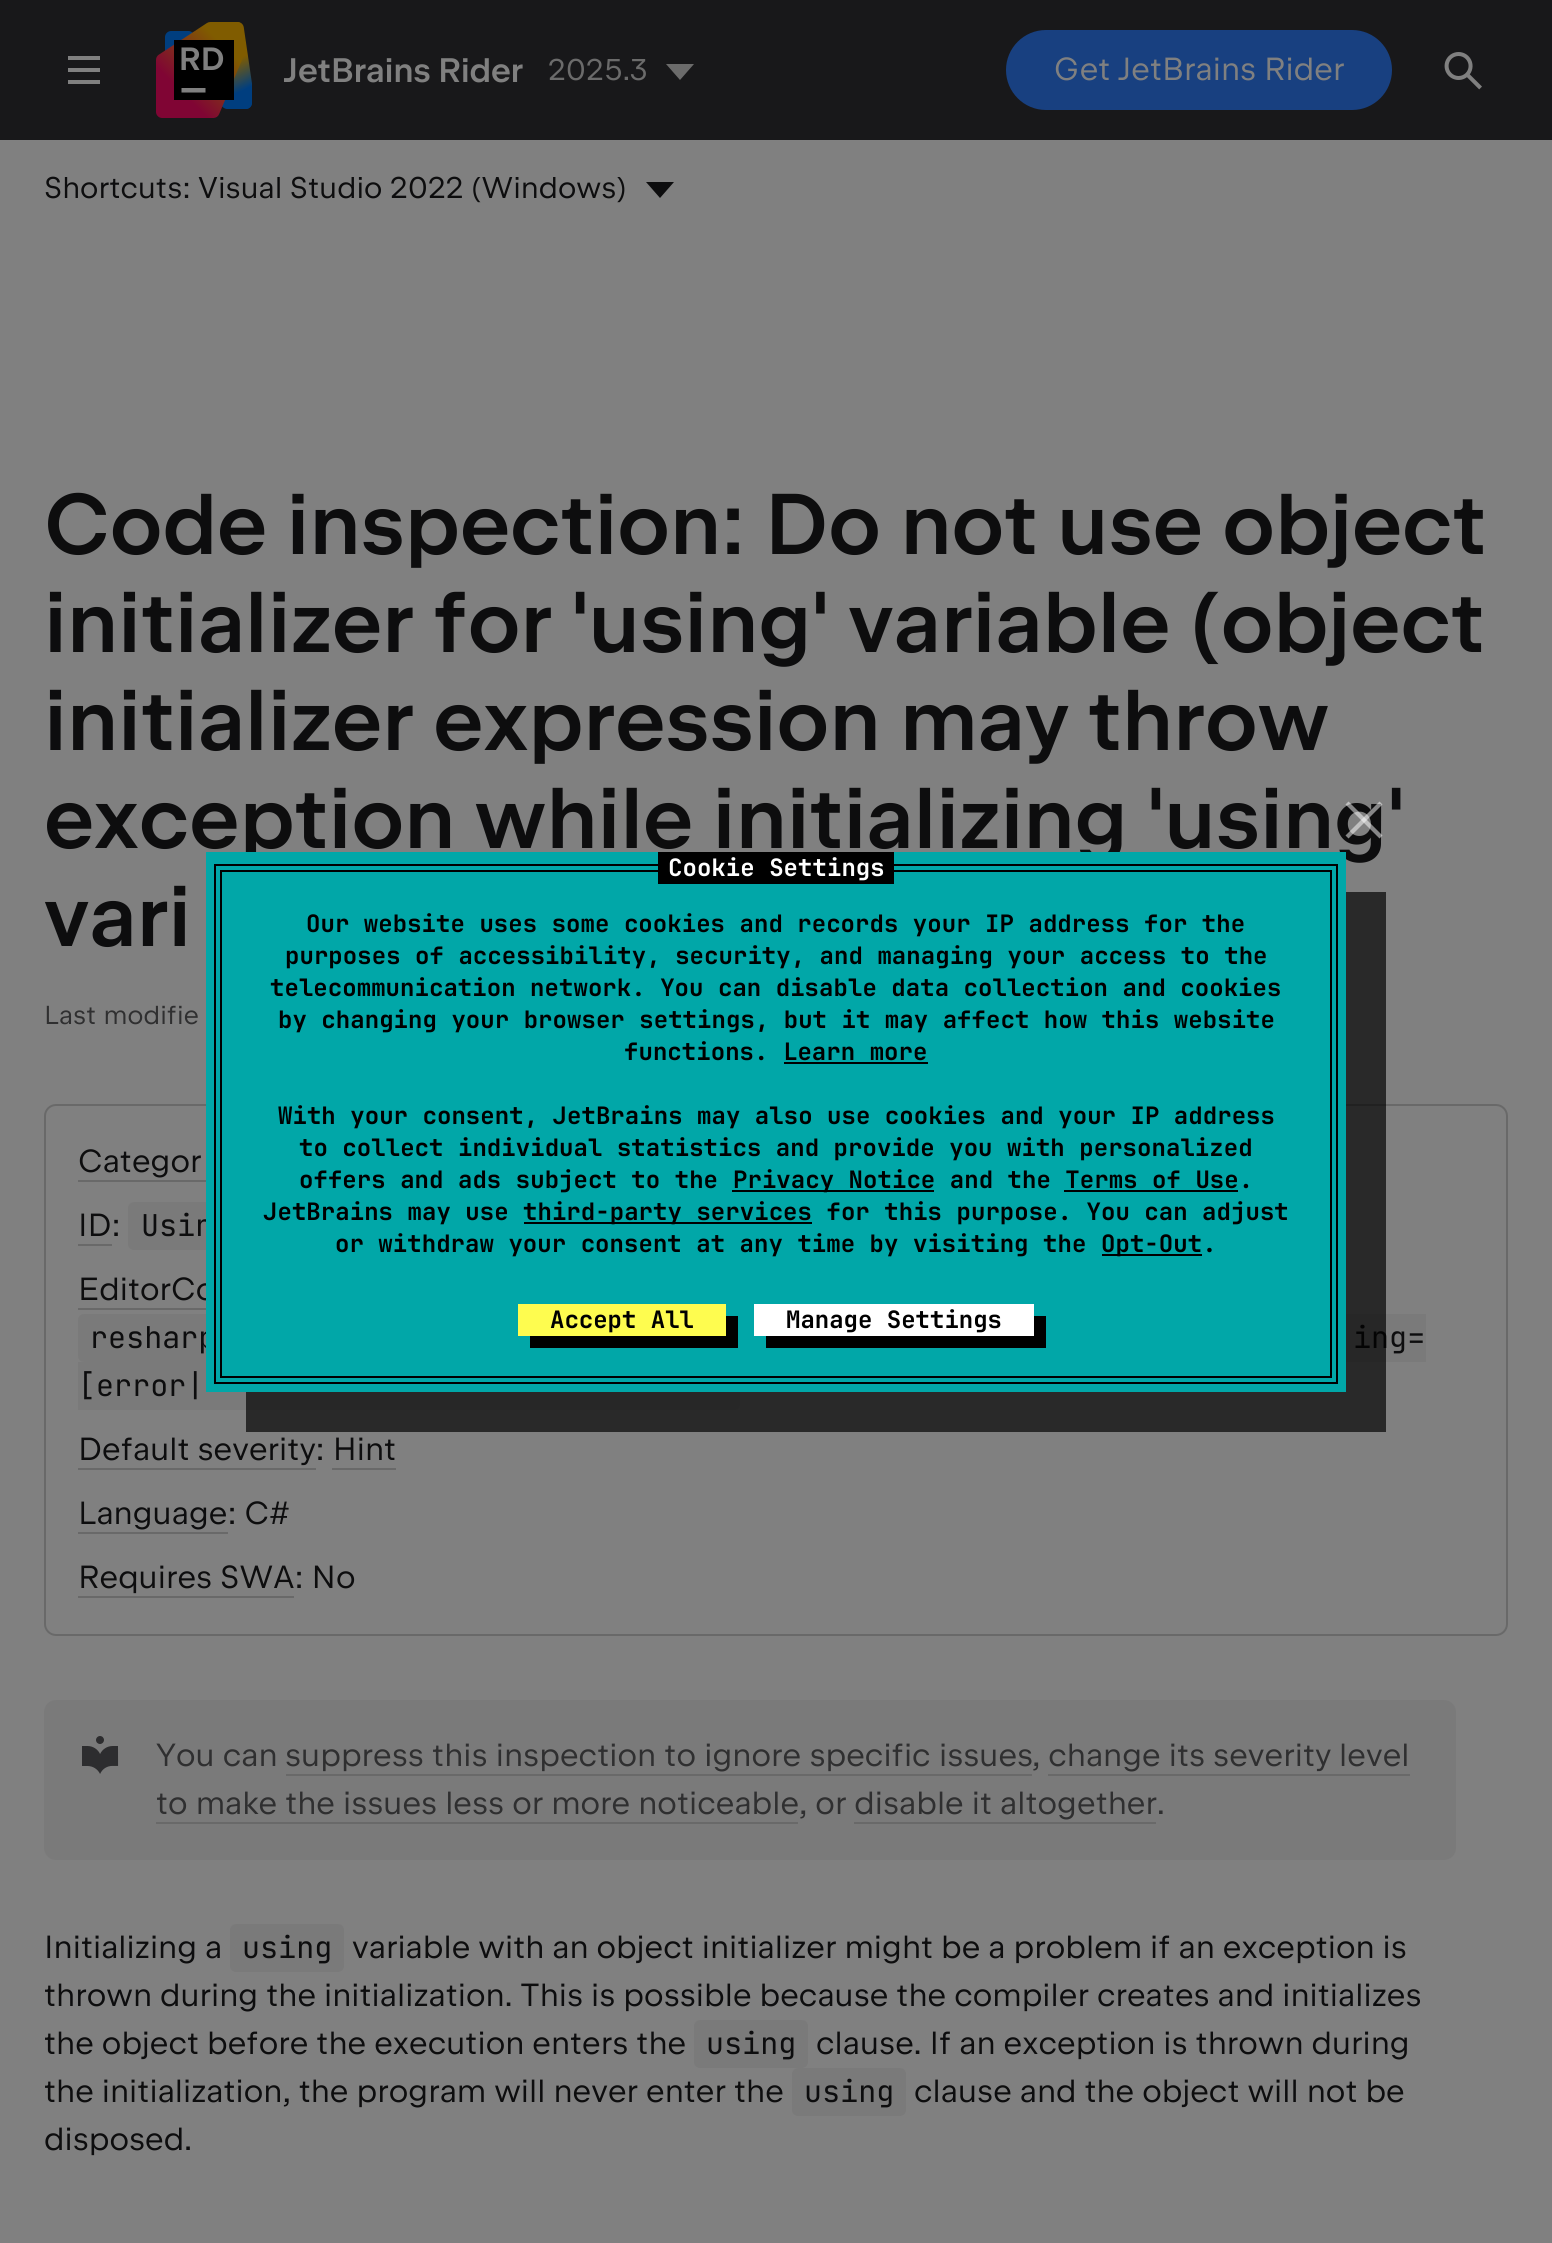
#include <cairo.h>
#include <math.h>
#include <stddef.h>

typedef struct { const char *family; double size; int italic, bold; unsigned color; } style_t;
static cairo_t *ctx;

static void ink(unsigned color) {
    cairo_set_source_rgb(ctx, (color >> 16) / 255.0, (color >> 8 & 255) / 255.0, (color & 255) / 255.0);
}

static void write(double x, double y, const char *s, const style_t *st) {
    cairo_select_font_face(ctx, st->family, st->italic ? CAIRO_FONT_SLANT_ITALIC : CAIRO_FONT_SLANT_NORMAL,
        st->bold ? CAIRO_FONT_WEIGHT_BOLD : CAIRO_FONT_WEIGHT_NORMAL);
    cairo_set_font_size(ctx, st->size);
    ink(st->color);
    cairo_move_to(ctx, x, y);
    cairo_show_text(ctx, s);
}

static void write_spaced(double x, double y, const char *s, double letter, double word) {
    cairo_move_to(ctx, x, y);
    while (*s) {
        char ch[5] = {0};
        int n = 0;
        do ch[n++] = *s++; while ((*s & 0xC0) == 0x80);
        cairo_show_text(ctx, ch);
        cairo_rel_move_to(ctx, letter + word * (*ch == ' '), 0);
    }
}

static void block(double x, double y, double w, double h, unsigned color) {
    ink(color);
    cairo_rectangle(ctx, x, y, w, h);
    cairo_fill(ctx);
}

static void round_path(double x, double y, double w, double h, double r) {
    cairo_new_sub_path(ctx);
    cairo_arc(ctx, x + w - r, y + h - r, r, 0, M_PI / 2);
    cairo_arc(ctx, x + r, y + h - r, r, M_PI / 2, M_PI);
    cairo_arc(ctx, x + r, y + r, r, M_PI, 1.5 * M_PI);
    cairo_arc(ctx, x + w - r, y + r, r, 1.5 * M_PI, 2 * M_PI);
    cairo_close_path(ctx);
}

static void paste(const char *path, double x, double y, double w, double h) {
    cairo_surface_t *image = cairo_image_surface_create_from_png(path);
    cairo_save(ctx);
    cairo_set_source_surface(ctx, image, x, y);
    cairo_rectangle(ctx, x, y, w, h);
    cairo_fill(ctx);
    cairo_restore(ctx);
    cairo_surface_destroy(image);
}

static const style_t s1 = {"JetBrains Mono", 24, 0, 1, 0x000000};

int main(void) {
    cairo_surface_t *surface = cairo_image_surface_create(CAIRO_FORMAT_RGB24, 1552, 2243);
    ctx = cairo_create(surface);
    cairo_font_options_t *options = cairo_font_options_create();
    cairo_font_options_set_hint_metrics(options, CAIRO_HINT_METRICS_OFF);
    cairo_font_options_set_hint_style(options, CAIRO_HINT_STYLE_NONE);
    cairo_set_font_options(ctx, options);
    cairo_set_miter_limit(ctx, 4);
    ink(0x808080);
    cairo_paint(ctx);
    block(0, 0, 1552, 140, 0x18181a);
    paste("pic1.png", 68, 56, 32, 28);
    paste("pic2.png", 156, 22, 96, 96);
    cairo_select_font_face(ctx, "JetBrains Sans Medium", CAIRO_FONT_SLANT_NORMAL, CAIRO_FONT_WEIGHT_NORMAL);
    cairo_set_font_size(ctx, 34);
    ink(0x808080);
    write_spaced(284, 82, "JetBrains Rider", -0.25, 0);
    cairo_select_font_face(ctx, "JetBrains Sans", CAIRO_FONT_SLANT_NORMAL, CAIRO_FONT_WEIGHT_NORMAL);
    cairo_set_font_size(ctx, 30);
    ink(0x6b6b6b);
    write_spaced(548, 80, "2025.3", 0.05, 0);
    cairo_new_path(ctx);
    cairo_move_to(ctx, 680, 80);
    cairo_line_to(ctx, 666, 64);
    cairo_line_to(ctx, 694, 64);
    cairo_close_path(ctx);
    cairo_fill(ctx);
    ink(0x184080);
    round_path(1006, 30, 386, 80, 40);
    cairo_fill(ctx);
    cairo_set_font_size(ctx, 32);
    ink(0x808080);
    write_spaced(1054, 80, "Get JetBrains Rider", 0.05, 0);
    paste("pic3.png", 1444, 52, 38, 38);
    cairo_set_font_size(ctx, 30);
    ink(0x0d0d0e);
    write_spaced(44, 198, "Shortcuts:", 0.05, 0);
    write_spaced(198, 198, "Visual Studio 2022 (Windows)", 0.05, 0);
    cairo_new_path(ctx);
    cairo_move_to(ctx, 660, 198);
    cairo_line_to(ctx, 646, 182);
    cairo_line_to(ctx, 674, 182);
    cairo_close_path(ctx);
    cairo_fill(ctx);
    cairo_select_font_face(ctx, "JetBrains Sans Medium", CAIRO_FONT_SLANT_NORMAL, CAIRO_FONT_WEIGHT_NORMAL);
    cairo_set_font_size(ctx, 86);
    write_spaced(44, 554, "Code inspection: Do not use object", -0.1, 0);
    write_spaced(44, 652, "initializer for 'using' variable (object", -0.1, 0);
    write_spaced(44, 750, "initializer expression may throw", -0.1, 0);
    write_spaced(44, 848, "exception while initializing 'using'", -0.1, 0);
    write_spaced(44, 946, "vari", -0.1, 0);
    cairo_select_font_face(ctx, "JetBrains Sans", CAIRO_FONT_SLANT_NORMAL, CAIRO_FONT_WEIGHT_NORMAL);
    cairo_set_font_size(ctx, 26);
    ink(0x2f2f30);
    write_spaced(44, 1024, "Last modifie", 0.1, 1);
    round_path(45, 1105, 1462, 530, 11);
    ink(0x696969);
    cairo_stroke(ctx);
    cairo_set_font_size(ctx, 32);
    ink(0x0d0d0e);
    write_spaced(78, 1172, "Categor", 0.05, 0);
    block(78, 1180, 128, 2, 0x696969);
    ink(0x0d0d0e);
    write_spaced(78, 1236, "ID:", 0.05, 0);
    block(78, 1244, 34, 2, 0x696969);
    ink(0x7a7a7a);
    round_path(128, 1202, 854, 48, 6);
    cairo_fill(ctx);
    cairo_select_font_face(ctx, "JetBrains Mono", CAIRO_FONT_SLANT_NORMAL, CAIRO_FONT_WEIGHT_NORMAL);
    cairo_set_font_size(ctx, 30);
    ink(0x0d0d0e);
    write_spaced(141, 1236, "Usin", 0.05, 0);
    cairo_select_font_face(ctx, "JetBrains Sans", CAIRO_FONT_SLANT_NORMAL, CAIRO_FONT_WEIGHT_NORMAL);
    cairo_set_font_size(ctx, 32);
    write_spaced(78, 1300, "EditorCo", 0.05, 0);
    block(78, 1308, 128, 2, 0x696969);
    ink(0x7a7a7a);
    cairo_new_path(ctx);
    cairo_move_to(ctx, 84, 1314);
    cairo_line_to(ctx, 1426, 1314);
    cairo_line_to(ctx, 1426, 1362);
    cairo_line_to(ctx, 84, 1362);
    cairo_curve_to(ctx, 80.5, 1362, 78, 1359.5, 78, 1356);
    cairo_line_to(ctx, 78, 1320);
    cairo_curve_to(ctx, 78, 1316.5, 80.5, 1314, 84, 1314);
    cairo_close_path(ctx);
    cairo_fill(ctx);
    cairo_select_font_face(ctx, "JetBrains Mono", CAIRO_FONT_SLANT_NORMAL, CAIRO_FONT_WEIGHT_NORMAL);
    cairo_set_font_size(ctx, 30);
    ink(0x0d0d0e);
    write_spaced(90, 1348, "resharp", 0.05, 0);
    write_spaced(1353, 1348, "ing=", 0.05, 0);
    ink(0x7a7a7a);
    cairo_new_path(ctx);
    cairo_move_to(ctx, 78, 1362);
    cairo_line_to(ctx, 734, 1362);
    cairo_curve_to(ctx, 737.5, 1362, 740, 1364.5, 740, 1368);
    cairo_line_to(ctx, 740, 1404);
    cairo_curve_to(ctx, 740, 1407.5, 737.5, 1410, 734, 1410);
    cairo_line_to(ctx, 78, 1410);
    cairo_close_path(ctx);
    cairo_fill(ctx);
    ink(0x0d0d0e);
    write_spaced(78, 1396, "[error|", 0.05, 0);
    cairo_select_font_face(ctx, "JetBrains Sans", CAIRO_FONT_SLANT_NORMAL, CAIRO_FONT_WEIGHT_NORMAL);
    cairo_set_font_size(ctx, 32);
    write_spaced(78, 1460, "Default severity: Hint", 0.05, 0);
    block(78, 1468, 238, 2, 0x696969);
    block(332, 1468, 64, 2, 0x696969);
    ink(0x0d0d0e);
    write_spaced(78, 1524, "Language: C#", 0.05, 0);
    block(78, 1532, 150, 2, 0x696969);
    ink(0x0d0d0e);
    write_spaced(78, 1588, "Requires SWA: No", 0.05, 0);
    block(78, 1596, 216, 2, 0x696969);
    ink(0x7a7a7a);
    round_path(44, 1700, 1412, 160, 12);
    cairo_fill(ctx);
    paste("pic4.png", 82, 1736, 37, 38);
    ink(0x2f2f30);
    write_spaced(156, 1766, "You can", 0.05, 0);
    write_spaced(285, 1766, "suppress this inspection to ignore specific issues", 0.05, 0.25);
    block(286, 1774, 746, 2, 0x696969);
    ink(0x2f2f30);
    write_spaced(1032, 1766, ", change its severity level", 0.05, 0);
    write_spaced(156, 1814, "to make the issues less or more noticeable, or disable it altogether.", 0.05, 0);
    block(1048, 1774, 362, 2, 0x696969);
    block(156, 1822, 642, 2, 0x696969);
    block(854, 1822, 302, 2, 0x696969);
    ink(0x0d0d0e);
    write_spaced(44, 1958, "Initializing a", 0.05, 0);
    ink(0x7a7a7a);
    round_path(230, 1924, 114, 48, 6);
    cairo_fill(ctx);
    cairo_select_font_face(ctx, "JetBrains Mono", CAIRO_FONT_SLANT_NORMAL, CAIRO_FONT_WEIGHT_NORMAL);
    cairo_set_font_size(ctx, 30);
    ink(0x0d0d0e);
    write_spaced(242, 1958, "using", 0.05, 0);
    cairo_select_font_face(ctx, "JetBrains Sans", CAIRO_FONT_SLANT_NORMAL, CAIRO_FONT_WEIGHT_NORMAL);
    cairo_set_font_size(ctx, 32);
    write_spaced(352, 1958, "variable with an object initializer might be a problem if an exception is", 0.05, 0);
    write_spaced(44, 2006, "thrown during the initialization. This is possible because the compiler creates and initializes", 0.05, 0);
    write_spaced(44, 2054, "the object before the execution enters the", 0.05, 0);
    ink(0x7a7a7a);
    round_path(694, 2020, 114, 48, 6);
    cairo_fill(ctx);
    cairo_select_font_face(ctx, "JetBrains Mono", CAIRO_FONT_SLANT_NORMAL, CAIRO_FONT_WEIGHT_NORMAL);
    cairo_set_font_size(ctx, 30);
    ink(0x0d0d0e);
    write_spaced(706, 2054, "using", 0.05, 0);
    cairo_select_font_face(ctx, "JetBrains Sans", CAIRO_FONT_SLANT_NORMAL, CAIRO_FONT_WEIGHT_NORMAL);
    cairo_set_font_size(ctx, 32);
    write_spaced(816, 2054, "clause. If an exception is thrown during", 0.05, 0);
    write_spaced(44, 2102, "the initialization, the program will never enter the", 0.05, 0);
    ink(0x7a7a7a);
    round_path(792, 2068, 114, 48, 6);
    cairo_fill(ctx);
    cairo_select_font_face(ctx, "JetBrains Mono", CAIRO_FONT_SLANT_NORMAL, CAIRO_FONT_WEIGHT_NORMAL);
    cairo_set_font_size(ctx, 30);
    ink(0x0d0d0e);
    write_spaced(804, 2102, "using", 0.05, 0);
    cairo_select_font_face(ctx, "JetBrains Sans", CAIRO_FONT_SLANT_NORMAL, CAIRO_FONT_WEIGHT_NORMAL);
    cairo_set_font_size(ctx, 32);
    write_spaced(914, 2102, "clause and the object will not be", 0.05, 0);
    write_spaced(44, 2150, "disposed.", 0.05, 0);
    cairo_set_source_rgba(ctx, 0, 0, 0, 0.68);
    cairo_new_path(ctx);
    cairo_move_to(ctx, 246, 1392);
    cairo_line_to(ctx, 246, 1432);
    cairo_line_to(ctx, 1386, 1432);
    cairo_line_to(ctx, 1386, 892);
    cairo_line_to(ctx, 1346, 892);
    cairo_line_to(ctx, 1346, 1392);
    cairo_close_path(ctx);
    cairo_fill(ctx);
    block(206, 852, 1140, 540, 0x01a7a8);
    cairo_set_source_rgba(ctx, 1, 1, 1, 0.5);
    cairo_new_path(ctx);
    cairo_move_to(ctx, 1345.5, 835.5);
    cairo_line_to(ctx, 1379.5, 801.5);
    cairo_line_to(ctx, 1382.5, 804.5);
    cairo_line_to(ctx, 1348.5, 838.5);
    cairo_close_path(ctx);
    cairo_fill(ctx);
    cairo_new_path(ctx);
    cairo_move_to(ctx, 1348.5, 801.5);
    cairo_line_to(ctx, 1382.5, 835.5);
    cairo_line_to(ctx, 1379.5, 838.5);
    cairo_line_to(ctx, 1345.5, 804.5);
    cairo_close_path(ctx);
    cairo_fill(ctx);
    block(220, 870, 1112, 2, 0x000000);
    block(1330, 870, 2, 508, 0x000000);
    block(220, 870, 2, 434, 0x000000);
    block(214, 864, 1124, 2, 0x000000);
    block(658, 852, 236, 32, 0x000000);
    cairo_select_font_face(ctx, "JetBrains Mono", CAIRO_FONT_SLANT_NORMAL, CAIRO_FONT_WEIGHT_BOLD);
    cairo_set_font_size(ctx, 24);
    ink(0xffffff);
    write_spaced(668, 876, "Cookie Settings", 0.05, 0);
    block(1336, 864, 2, 520, 0x000000);
    block(214, 864, 2, 438, 0x000000);
    write_spaced(306, 932, "Our website uses some cookies and records your IP address for the", 0.05, 0);
    write_spaced(285, 964, "purposes of accessibility, security, and managing your access to the", 0.05, 0);
    write_spaced(270, 996, "telecommunication network. You can disable data collection and cookies", 0.05, 0);
    write_spaced(278, 1028, "by changing your browser settings, but it may affect how this website", 0.05, 0);
    write_spaced(624, 1060, "functions. Learn more", 0.05, 0);
    block(784, 1062, 144, 2, 0x000000);
    write_spaced(278, 1124, "With your consent, JetBrains may also use cookies and your IP address", 0.05, 0);
    write_spaced(299, 1156, "to collect individual statistics and provide you with personalized", 0.05, 0);
    write_spaced(299, 1188, "offers and ads subject to the", 0.05, 0);
    block(732, 1190, 202, 2, 0x000000);
    write_spaced(733, 1188, "Privacy Notice and the Terms of Use.", 0.05, 0);
    block(1064, 1190, 174, 2, 0x000000);
    write_spaced(263, 1220, "JetBrains may use", 0.05, 0);
    block(524, 1222, 288, 2, 0x000000);
    write_spaced(523, 1220, "third-party services for this purpose. You can adjust", 0.05, 0);
    write_spaced(335, 1252, "or withdraw your consent at any time by visiting the", 0.05, 0);
    block(1102, 1254, 100, 2, 0x000000);
    write_spaced(1101, 1252, "Opt-Out.", 0.05, 0);
    block(220, 1376, 1112, 2, 0x000000);
    block(220, 1304, 2, 74, 0x000000);
    block(214, 1382, 1124, 2, 0x000000);
    block(214, 1302, 2, 82, 0x000000);
    cairo_new_path(ctx);
    cairo_move_to(ctx, 530, 1336);
    cairo_line_to(ctx, 530, 1348);
    cairo_line_to(ctx, 738, 1348);
    cairo_line_to(ctx, 738, 1316);
    cairo_line_to(ctx, 726, 1316);
    cairo_line_to(ctx, 726, 1336);
    cairo_close_path(ctx);
    cairo_fill(ctx);
    block(518, 1304, 208, 32, 0xfefc4f);
    write(550, 1328, "Accept All", &s1);
    cairo_new_path(ctx);
    cairo_move_to(ctx, 766, 1336);
    cairo_line_to(ctx, 766, 1348);
    cairo_line_to(ctx, 1046, 1348);
    cairo_line_to(ctx, 1046, 1316);
    cairo_line_to(ctx, 1034, 1316);
    cairo_line_to(ctx, 1034, 1336);
    cairo_close_path(ctx);
    cairo_fill(ctx);
    block(754, 1304, 280, 32, 0xffffff);
    write(786, 1328, "Manage Settings", &s1);
    cairo_surface_write_to_png(surface, "screenshot.png");
    cairo_font_options_destroy(options);
    cairo_destroy(ctx);
    cairo_surface_destroy(surface);
    return 0;
}
